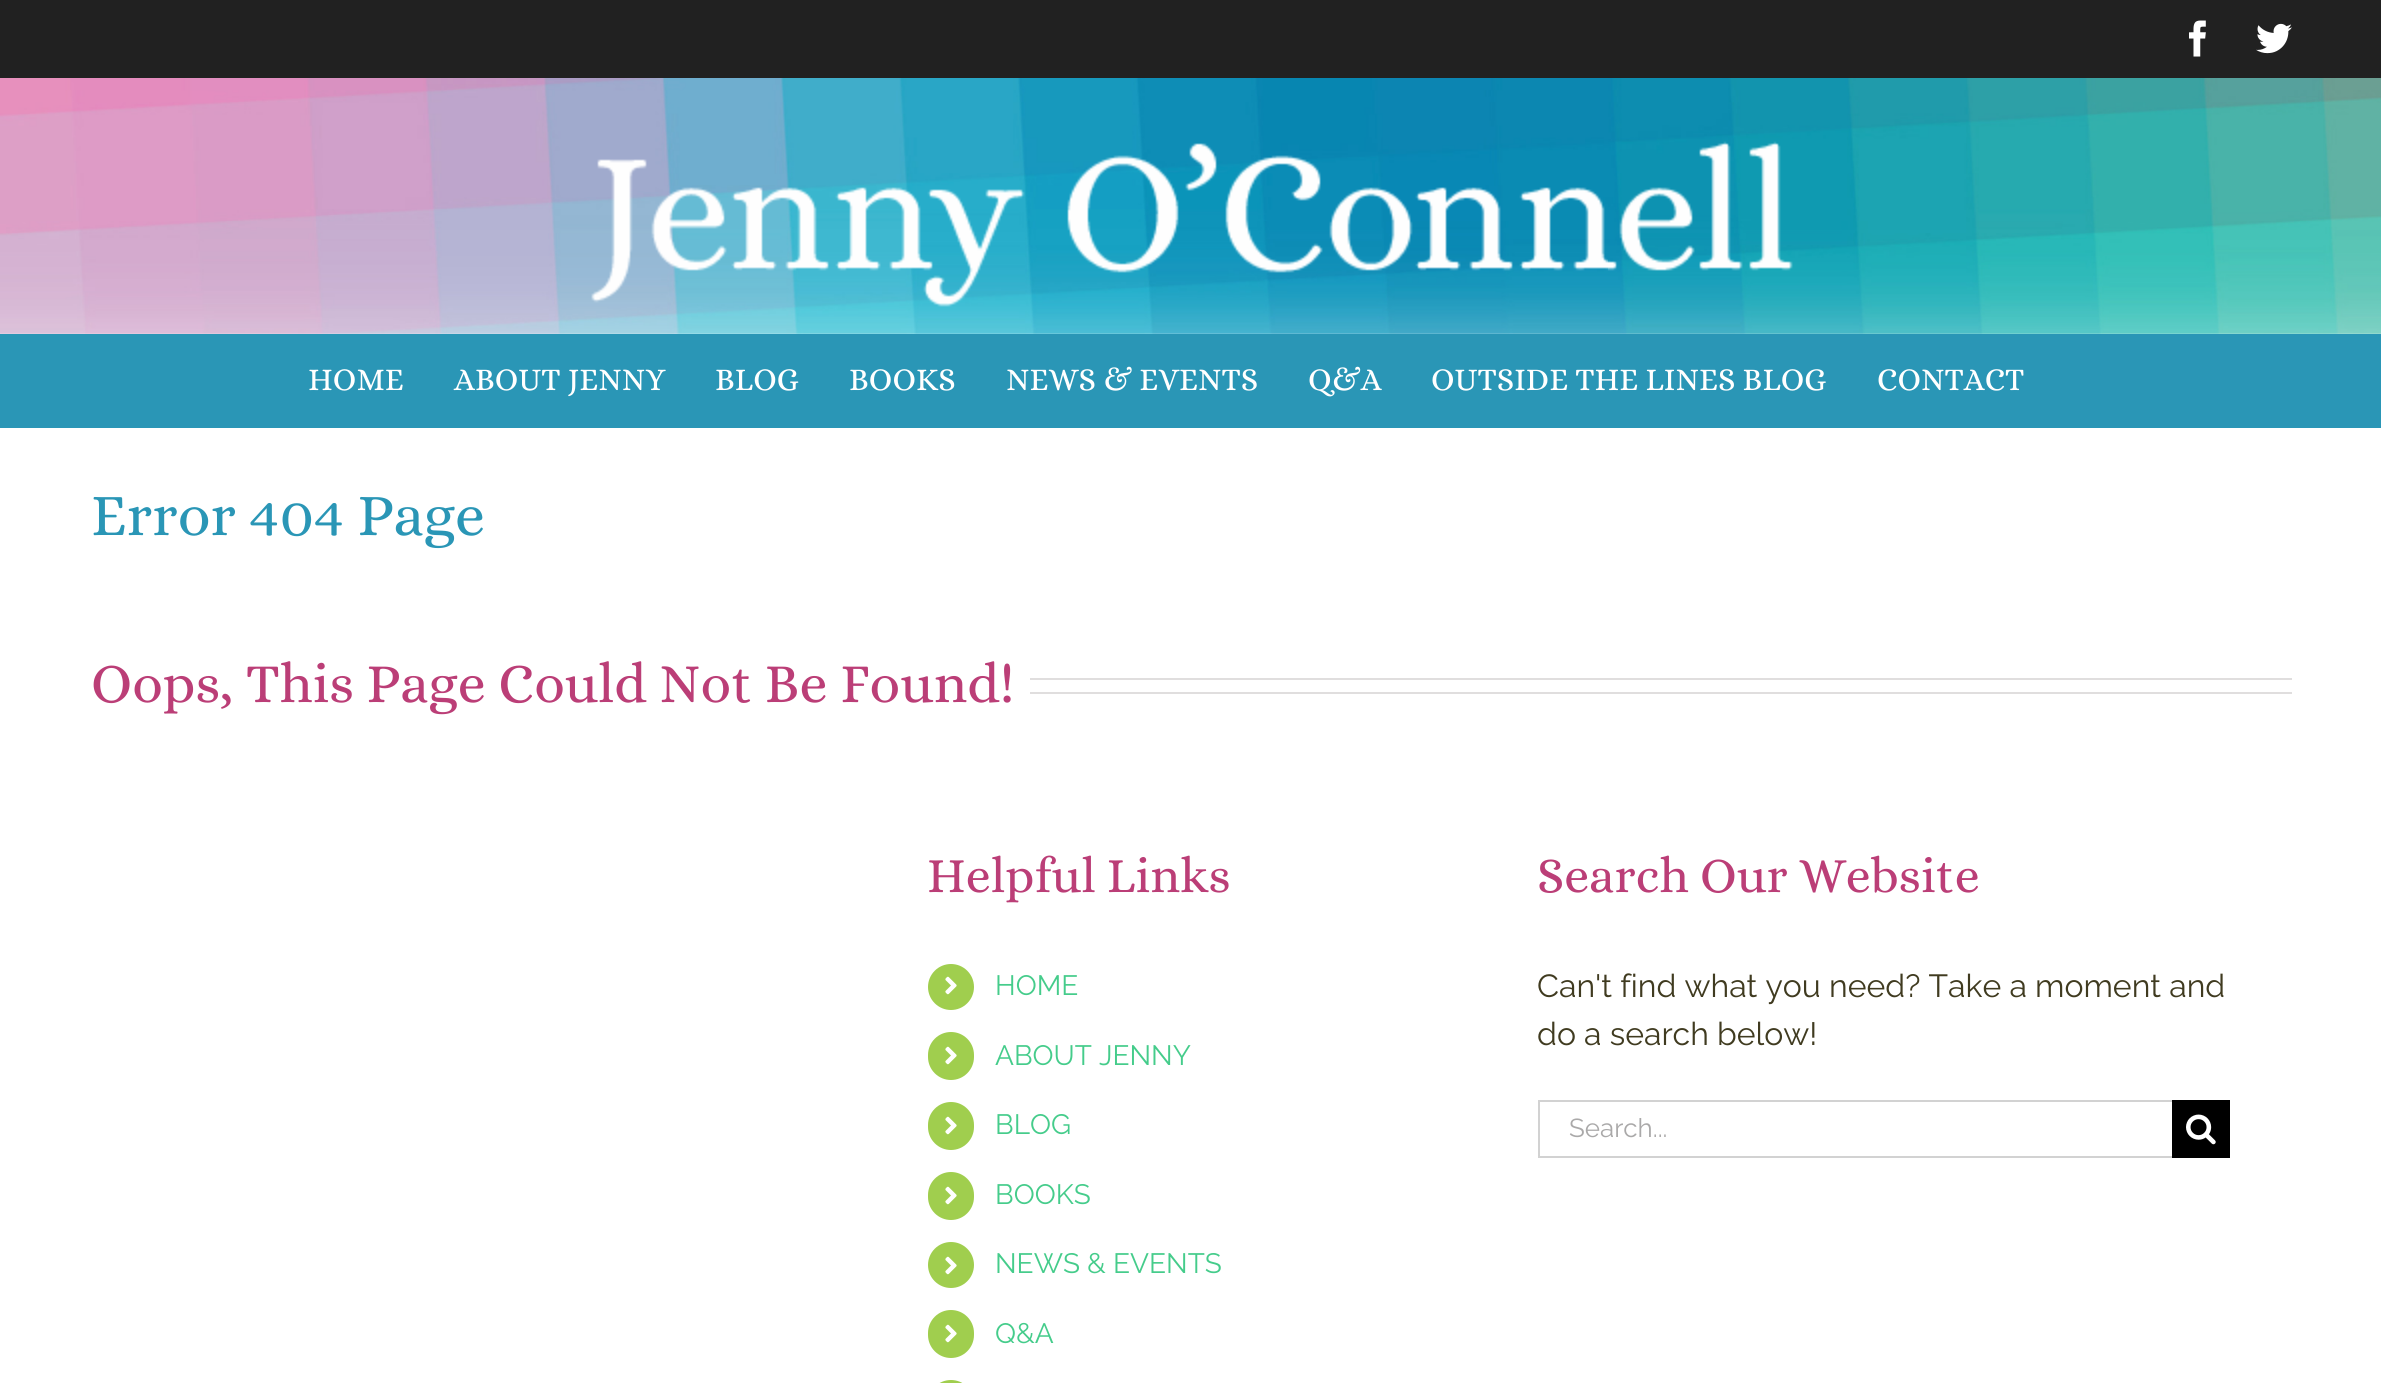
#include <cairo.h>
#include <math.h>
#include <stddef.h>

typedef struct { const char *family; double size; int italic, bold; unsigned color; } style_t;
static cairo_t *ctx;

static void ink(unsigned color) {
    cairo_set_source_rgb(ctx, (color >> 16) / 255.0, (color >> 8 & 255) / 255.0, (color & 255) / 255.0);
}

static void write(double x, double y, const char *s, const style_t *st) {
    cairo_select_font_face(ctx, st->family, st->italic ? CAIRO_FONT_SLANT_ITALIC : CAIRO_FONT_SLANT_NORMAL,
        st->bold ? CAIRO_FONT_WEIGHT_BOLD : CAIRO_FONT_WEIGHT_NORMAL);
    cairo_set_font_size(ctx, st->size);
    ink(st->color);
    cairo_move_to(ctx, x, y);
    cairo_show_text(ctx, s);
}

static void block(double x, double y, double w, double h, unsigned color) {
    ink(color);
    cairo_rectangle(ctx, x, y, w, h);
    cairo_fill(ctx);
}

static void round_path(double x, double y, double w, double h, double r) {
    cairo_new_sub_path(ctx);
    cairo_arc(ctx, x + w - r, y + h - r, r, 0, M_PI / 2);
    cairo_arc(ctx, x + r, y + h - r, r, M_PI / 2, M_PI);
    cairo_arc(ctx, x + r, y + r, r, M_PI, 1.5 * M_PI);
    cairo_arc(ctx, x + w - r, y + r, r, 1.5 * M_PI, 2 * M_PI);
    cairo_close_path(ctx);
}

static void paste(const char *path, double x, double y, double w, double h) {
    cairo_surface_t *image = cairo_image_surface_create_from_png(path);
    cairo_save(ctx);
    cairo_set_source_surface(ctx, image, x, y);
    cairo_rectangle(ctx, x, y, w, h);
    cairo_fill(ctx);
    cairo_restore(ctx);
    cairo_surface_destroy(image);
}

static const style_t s1 = {"Alice", 32, 0, 0, 0xffffff};
static const style_t s2 = {"Alice", 60, 0, 0, 0x2a96b6};
static const style_t s3 = {"Alice", 56, 0, 0, 0xbb3e77};
static const style_t s4 = {"Alice", 50, 0, 0, 0xbb3e77};
static const style_t s5 = {"Raleway Thin", 28, 0, 0, 0x45cc8b};
static const style_t s6 = {"Raleway Thin", 32, 0, 0, 0x403b20};
static const style_t s7 = {"Raleway Thin", 26, 0, 0, 0xaaa9a9};

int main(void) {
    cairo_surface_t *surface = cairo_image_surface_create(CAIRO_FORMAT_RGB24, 2381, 1383);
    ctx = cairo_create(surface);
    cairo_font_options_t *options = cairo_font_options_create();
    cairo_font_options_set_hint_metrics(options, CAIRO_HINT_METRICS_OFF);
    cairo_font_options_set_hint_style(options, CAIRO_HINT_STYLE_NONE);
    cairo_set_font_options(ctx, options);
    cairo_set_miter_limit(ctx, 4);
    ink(0xffffff);
    cairo_paint(ctx);
    block(0, 0, 2381, 78, 0x212121);
    paste("pic1.png", 2189, 20, 17, 37);
    paste("pic2.png", 2256, 23, 36, 31);
    paste("pic3.png", 0, 78, 2381, 256);
    paste("pic4.png", 591, 141, 1202, 166);
    block(0, 334, 2381, 94, 0x2a96b6);
    write(308, 390, "HOME", &s1);
    write(454, 390, "ABOUT JENNY", &s1);
    write(715, 390, "BLOG", &s1);
    write(849, 390, "BOOKS", &s1);
    write(1006, 390, "NEWS & EVENTS", &s1);
    write(1308, 390, "Q&A", &s1);
    write(1431, 390, "OUTSIDE THE LINES BLOG", &s1);
    write(1877, 390, "CONTACT", &s1);
    write(91, 535, "Error 404 Page", &s2);
    write(91, 702, "Oops, This Page Could Not Be Found!", &s3);
    block(1030, 678, 1262, 2, 0xe0dede);
    block(1030, 692, 1262, 2, 0xe0dede);
    write(927, 892, "Helpful Links", &s4);
    ink(0xa0ce4e);
    cairo_new_path(ctx);
    cairo_arc(ctx, 951, 987, 23, 0, 2 * M_PI);
    cairo_fill(ctx);
    paste("pic5.png", 945, 976, 12, 19);
    write(995, 995, "HOME", &s5);
    ink(0xa0ce4e);
    round_path(928, 1032, 46, 48, 23);
    cairo_fill(ctx);
    paste("pic5.png", 945, 1046, 12, 19);
    write(995, 1065, "ABOUT JENNY", &s5);
    ink(0xa0ce4e);
    round_path(928, 1102, 46, 48, 23);
    cairo_fill(ctx);
    paste("pic5.png", 945, 1116, 12, 19);
    write(995, 1134, "BLOG", &s5);
    ink(0xa0ce4e);
    round_path(928, 1172, 46, 48, 23);
    cairo_fill(ctx);
    paste("pic5.png", 945, 1186, 12, 19);
    write(995, 1204, "BOOKS", &s5);
    ink(0xa0ce4e);
    cairo_new_path(ctx);
    cairo_arc(ctx, 951, 1265, 23, 0, 2 * M_PI);
    cairo_fill(ctx);
    paste("pic5.png", 945, 1256, 12, 19);
    write(995, 1273, "NEWS & EVENTS", &s5);
    ink(0xa0ce4e);
    round_path(928, 1310, 46, 48, 23);
    cairo_fill(ctx);
    paste("pic5.png", 945, 1324, 12, 19);
    write(995, 1343, "Q&A", &s5);
    ink(0xa0ce4e);
    round_path(928, 1380, 46, 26, 23);
    cairo_fill(ctx);
    write(1537, 892, "Search Our Website", &s4);
    write(1537, 997, "Can't find what you need? Take a moment and", &s6);
    write(1537, 1045, "do a search below!", &s6);
    block(1538, 1100, 634, 2, 0xd2d2d2);
    block(1538, 1156, 634, 2, 0xd2d2d2);
    block(1538, 1100, 2, 58, 0xd2d2d2);
    write(1569, 1137, "Search...", &s7);
    block(2172, 1100, 58, 58, 0x000000);
    paste("pic6.png", 2186, 1114, 30, 31);
    cairo_surface_write_to_png(surface, "screenshot.png");
    cairo_font_options_destroy(options);
    cairo_destroy(ctx);
    cairo_surface_destroy(surface);
    return 0;
}
